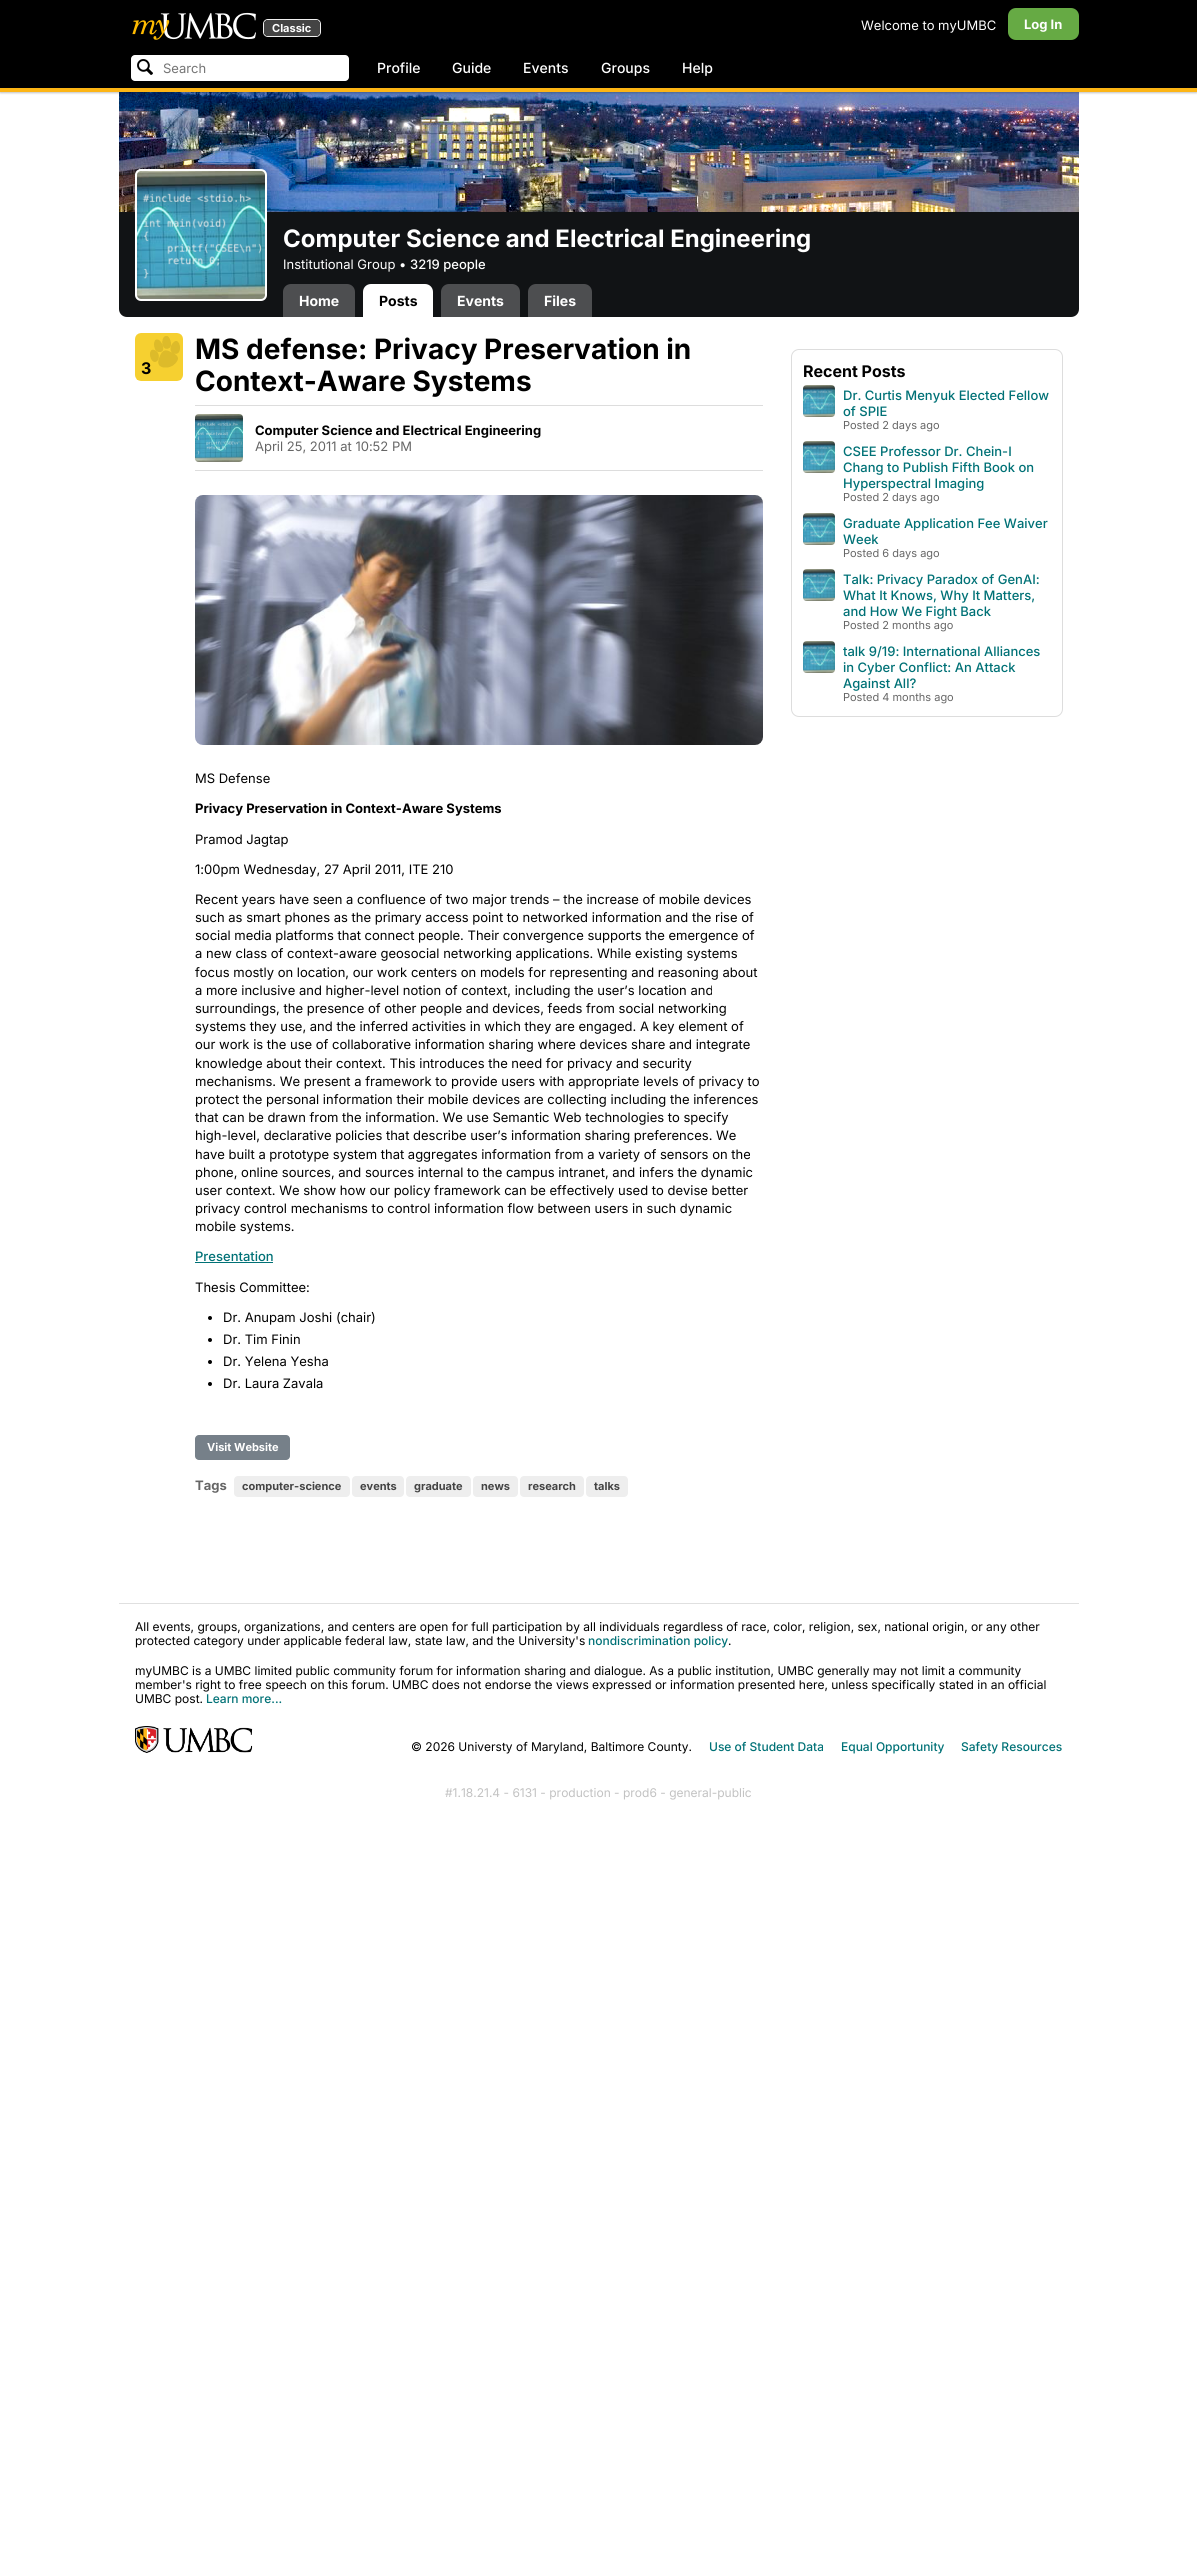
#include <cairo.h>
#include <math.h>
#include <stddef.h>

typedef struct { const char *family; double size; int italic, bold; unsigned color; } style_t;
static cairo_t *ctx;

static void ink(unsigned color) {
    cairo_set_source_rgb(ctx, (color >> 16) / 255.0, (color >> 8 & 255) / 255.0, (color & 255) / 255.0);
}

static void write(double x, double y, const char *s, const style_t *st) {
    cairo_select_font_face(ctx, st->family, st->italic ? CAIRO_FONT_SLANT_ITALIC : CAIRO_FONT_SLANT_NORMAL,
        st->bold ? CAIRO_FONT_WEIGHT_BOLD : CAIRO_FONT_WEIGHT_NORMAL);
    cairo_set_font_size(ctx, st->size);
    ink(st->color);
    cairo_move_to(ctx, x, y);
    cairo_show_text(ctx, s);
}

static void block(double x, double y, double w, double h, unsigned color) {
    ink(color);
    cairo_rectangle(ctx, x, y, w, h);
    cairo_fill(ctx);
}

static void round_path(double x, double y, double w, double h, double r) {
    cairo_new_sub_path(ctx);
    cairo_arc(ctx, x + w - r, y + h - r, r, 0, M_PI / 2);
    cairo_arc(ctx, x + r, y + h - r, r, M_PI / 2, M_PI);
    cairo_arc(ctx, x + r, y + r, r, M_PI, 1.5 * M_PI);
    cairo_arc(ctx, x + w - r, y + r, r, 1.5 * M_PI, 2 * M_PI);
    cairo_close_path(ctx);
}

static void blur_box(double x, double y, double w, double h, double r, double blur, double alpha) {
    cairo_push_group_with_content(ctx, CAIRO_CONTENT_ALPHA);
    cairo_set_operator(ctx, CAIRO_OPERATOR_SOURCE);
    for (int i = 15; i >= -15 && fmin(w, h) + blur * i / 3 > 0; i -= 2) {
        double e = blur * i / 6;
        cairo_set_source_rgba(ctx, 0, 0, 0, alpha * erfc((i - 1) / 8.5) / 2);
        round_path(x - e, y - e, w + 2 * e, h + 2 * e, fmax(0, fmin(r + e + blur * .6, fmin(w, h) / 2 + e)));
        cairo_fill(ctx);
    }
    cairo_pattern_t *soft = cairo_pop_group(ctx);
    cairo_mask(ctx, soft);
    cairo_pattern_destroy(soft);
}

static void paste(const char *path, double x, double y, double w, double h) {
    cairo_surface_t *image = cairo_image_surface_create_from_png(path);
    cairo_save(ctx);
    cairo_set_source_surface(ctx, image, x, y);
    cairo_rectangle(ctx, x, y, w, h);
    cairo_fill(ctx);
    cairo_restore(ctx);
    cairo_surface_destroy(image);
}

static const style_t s1 = {"Inter", 11, 0, 1, 0xffffff};
static const style_t s2 = {"Inter", 13, 0, 0, 0xffffff};
static const style_t s3 = {"Inter", 13, 0, 1, 0xffffff};
static const style_t s4 = {"Inter", 13, 0, 0, 0x757575};
static const style_t s5 = {"Inter Medium", 14, 0, 0, 0xffffff};
static const style_t s6 = {"Inter", 24, 0, 1, 0xffffff};
static const style_t s7 = {"Inter Medium", 13, 0, 0, 0xffffff};
static const style_t s8 = {"Inter", 14, 0, 1, 0xffffff};
static const style_t s9 = {"Inter", 14, 0, 1, 0x000000};
static const style_t s10 = {"Inter", 16, 0, 1, 0x000000};
static const style_t s11 = {"Inter", 28, 0, 1, 0x000000};
static const style_t s12 = {"Inter", 13, 0, 1, 0x000000};
static const style_t s13 = {"Inter", 13, 0, 0, 0x666666};
static const style_t s14 = {"Inter", 13, 0, 0, 0x000000};
static const style_t s15 = {"Inter Medium", 13, 0, 0, 0x007176};
static const style_t s16 = {"Inter", 13, 0, 1, 0x666666};
static const style_t s17 = {"Inter", 11, 0, 1, 0x444444};
static const style_t s18 = {"Inter", 11, 0, 0, 0x666666};
static const style_t s19 = {"Inter", 12, 0, 0, 0x000000};
static const style_t s20 = {"Inter Medium", 12, 0, 0, 0x007176};
static const style_t s21 = {"Inter", 12, 0, 0, 0xc2c2c2};

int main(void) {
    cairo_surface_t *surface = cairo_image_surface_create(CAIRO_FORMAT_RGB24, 1197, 2569);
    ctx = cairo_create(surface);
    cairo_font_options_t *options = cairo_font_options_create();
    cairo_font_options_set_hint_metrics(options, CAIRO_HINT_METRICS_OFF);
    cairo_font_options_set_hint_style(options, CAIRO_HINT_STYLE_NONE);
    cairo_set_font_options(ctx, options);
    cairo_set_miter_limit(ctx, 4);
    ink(0xffffff);
    cairo_paint(ctx);
    paste("pic3.png", 119, 92, 960, 120);
    ink(0x000000);
    blur_box(0, 1, 1197, 92, 0, 1, 0.24);
    block(0, 0, 1197, 88, 0x000000);
    block(0, 88, 1197, 4, 0xfdb515);
    paste("pic1.png", 132, 12, 124, 28);
    round_path(263.5, 19.5, 57, 17, 4.5);
    ink(0xf0f0f0);
    cairo_set_line_width(ctx, 1);
    cairo_stroke(ctx);
    ink(0x444444);
    round_path(264, 20, 56, 16, 4);
    cairo_fill(ctx);
    write(272, 32, "Classic", &s1);
    write(861, 30, "Welcome to myUMBC", &s2);
    ink(0x66aa44);
    round_path(1008, 8, 71, 32, 8);
    cairo_fill(ctx);
    write(1024, 29, "Log In", &s3);
    round_path(131, 55, 218, 26, 4);
    cairo_fill(ctx);
    paste("pic2.png", 137, 59, 16, 16);
    write(163, 73, "Search", &s4);
    write(377, 73, "Profile", &s5);
    write(452, 73, "Guide", &s5);
    write(523, 73, "Events", &s5);
    write(601, 73, "Groups", &s5);
    write(682, 73, "Help", &s5);
    block(119, 212, 960, 66, 0x111315);
    cairo_new_path(ctx);
    cairo_move_to(ctx, 119, 278);
    cairo_line_to(ctx, 1079, 278);
    cairo_line_to(ctx, 1079, 309);
    cairo_curve_to(ctx, 1079, 313.5, 1075.5, 317, 1071, 317);
    cairo_line_to(ctx, 127, 317);
    cairo_curve_to(ctx, 122.5, 317, 119, 313.5, 119, 309);
    cairo_close_path(ctx);
    cairo_fill(ctx);
    paste("pic4.png", 137, 171, 128, 128);
    round_path(136, 170, 130, 130, 5);
    ink(0xffffff);
    cairo_set_line_width(ctx, 2);
    cairo_stroke(ctx);
    write(283, 247, "Computer Science and Electrical Engineering", &s6);
    write(283, 269, "Institutional Group •", &s2);
    write(410, 269, "3219 people", &s7);
    ink(0x4d4e50);
    cairo_new_path(ctx);
    cairo_move_to(ctx, 291, 284);
    cairo_line_to(ctx, 347, 284);
    cairo_curve_to(ctx, 351.5, 284, 355, 287.5, 355, 292);
    cairo_line_to(ctx, 355, 317);
    cairo_line_to(ctx, 283, 317);
    cairo_line_to(ctx, 283, 292);
    cairo_curve_to(ctx, 283, 287.5, 286.5, 284, 291, 284);
    cairo_close_path(ctx);
    cairo_fill(ctx);
    write(299, 306, "Home", &s8);
    cairo_new_path(ctx);
    cairo_move_to(ctx, 371, 284);
    cairo_line_to(ctx, 425, 284);
    cairo_curve_to(ctx, 429.5, 284, 433, 287.5, 433, 292);
    cairo_line_to(ctx, 433, 317);
    cairo_line_to(ctx, 363, 317);
    cairo_line_to(ctx, 363, 292);
    cairo_curve_to(ctx, 363, 287.5, 366.5, 284, 371, 284);
    cairo_close_path(ctx);
    cairo_fill(ctx);
    write(379, 306, "Posts", &s9);
    ink(0x4d4e50);
    cairo_new_path(ctx);
    cairo_move_to(ctx, 449, 284);
    cairo_line_to(ctx, 512, 284);
    cairo_curve_to(ctx, 516.5, 284, 520, 287.5, 520, 292);
    cairo_line_to(ctx, 520, 317);
    cairo_line_to(ctx, 441, 317);
    cairo_line_to(ctx, 441, 292);
    cairo_curve_to(ctx, 441, 287.5, 444.5, 284, 449, 284);
    cairo_close_path(ctx);
    cairo_fill(ctx);
    write(457, 306, "Events", &s8);
    ink(0x4d4e50);
    cairo_new_path(ctx);
    cairo_move_to(ctx, 536, 284);
    cairo_line_to(ctx, 584, 284);
    cairo_curve_to(ctx, 588.5, 284, 592, 287.5, 592, 292);
    cairo_line_to(ctx, 592, 317);
    cairo_line_to(ctx, 528, 317);
    cairo_line_to(ctx, 528, 292);
    cairo_curve_to(ctx, 528, 287.5, 531.5, 284, 536, 284);
    cairo_close_path(ctx);
    cairo_fill(ctx);
    write(544, 306, "Files", &s8);
    paste("pic5.png", 135, 333, 48, 48);
    write(141, 374, "3", &s10);
    write(195, 359, "MS defense: Privacy Preservation in", &s11);
    write(195, 391, "Context-Aware Systems", &s11);
    block(195, 405, 568, 1, 0xdddddd);
    paste("pic6.png", 195, 414, 48, 48);
    write(255, 435, "Computer Science and Electrical Engineering", &s12);
    write(255, 451, "April 25, 2011 at 10:52 PM", &s13);
    block(195, 470, 568, 1, 0xdddddd);
    paste("pic7.png", 195, 495, 568, 250);
    write(195, 783, "MS Defense", &s14);
    write(195, 813, "Privacy Preservation in Context-Aware Systems", &s12);
    write(195, 844, "Pramod Jagtap", &s14);
    write(195, 874, "1:00pm Wednesday, 27 April 2011, ITE 210", &s14);
    write(195, 904, "Recent years have seen a confluence of two major trends – the increase of mobile devices", &s14);
    write(195, 922, "such as smart phones as the primary access point to networked information and the rise of", &s14);
    write(195, 940, "social media platforms that connect people. Their convergence supports the emergence of", &s14);
    write(195, 958, "a new class of context-aware geosocial networking applications. While existing systems", &s14);
    write(195, 977, "focus mostly on location, our work centers on models for representing and reasoning about", &s14);
    write(195, 995, "a more inclusive and higher-level notion of context, including the user’s location and", &s14);
    write(195, 1013, "surroundings, the presence of other people and devices, feeds from social networking", &s14);
    write(195, 1031, "systems they use, and the inferred activities in which they are engaged. A key element of", &s14);
    write(195, 1049, "our work is the use of collaborative information sharing where devices share and integrate", &s14);
    write(195, 1068, "knowledge about their context. This introduces the need for privacy and security", &s14);
    write(195, 1086, "mechanisms. We present a framework to provide users with appropriate levels of privacy to", &s14);
    write(195, 1104, "protect the personal information their mobile devices are collecting including the inferences", &s14);
    write(195, 1122, "that can be drawn from the information. We use Semantic Web technologies to specify", &s14);
    write(195, 1140, "high-level, declarative policies that describe user’s information sharing preferences. We", &s14);
    write(195, 1159, "have built a prototype system that aggregates information from a variety of sensors on the", &s14);
    write(195, 1177, "phone, online sources, and sources internal to the campus intranet, and infers the dynamic", &s14);
    write(195, 1195, "user context. We show how our policy framework can be effectively used to devise better", &s14);
    write(195, 1213, "privacy control mechanisms to control information flow between users in such dynamic", &s14);
    write(195, 1231, "mobile systems.", &s14);
    write(195, 1261, "Presentation", &s15);
    block(195, 1262, 78, 1, 0x007176);
    write(195, 1292, "Thesis Committee:", &s14);
    cairo_new_path(ctx);
    cairo_arc(ctx, 210, 1318, 2, 0, 2 * M_PI);
    cairo_fill(ctx);
    write(223, 1322, "Dr. Anupam Joshi (chair)", &s14);
    cairo_new_path(ctx);
    cairo_arc(ctx, 210, 1340, 2, 0, 2 * M_PI);
    cairo_fill(ctx);
    write(223, 1344, "Dr. Tim Finin", &s14);
    cairo_new_path(ctx);
    cairo_arc(ctx, 210, 1362, 2, 0, 2 * M_PI);
    cairo_fill(ctx);
    write(223, 1366, "Dr. Yelena Yesha", &s14);
    cairo_new_path(ctx);
    cairo_arc(ctx, 210, 1384, 2, 0, 2 * M_PI);
    cairo_fill(ctx);
    write(223, 1388, "Dr. Laura Zavala", &s14);
    ink(0x768089);
    round_path(195, 1435, 95, 25, 4);
    cairo_fill(ctx);
    write(207, 1451, "Visit Website", &s1);
    write(195, 1490, "Tags", &s16);
    ink(0xeeeeee);
    round_path(234, 1476, 116, 21, 4);
    cairo_fill(ctx);
    write(242, 1490, "computer-science", &s17);
    ink(0xeeeeee);
    round_path(352, 1476, 52, 21, 4);
    cairo_fill(ctx);
    write(360, 1490, "events", &s17);
    ink(0xeeeeee);
    round_path(406, 1476, 65, 21, 4);
    cairo_fill(ctx);
    write(414, 1490, "graduate", &s17);
    ink(0xeeeeee);
    round_path(473, 1476, 45, 21, 4);
    cairo_fill(ctx);
    write(481, 1490, "news", &s17);
    ink(0xeeeeee);
    round_path(520, 1476, 64, 21, 4);
    cairo_fill(ctx);
    write(528, 1490, "research", &s17);
    ink(0xeeeeee);
    round_path(586, 1476, 42, 21, 4);
    cairo_fill(ctx);
    write(594, 1490, "talks", &s17);
    round_path(791.5, 349.5, 271, 367, 7.5);
    ink(0xdddddd);
    cairo_set_line_width(ctx, 1);
    cairo_stroke(ctx);
    write(803, 377, "Recent Posts", &s10);
    paste("pic8.png", 803, 385, 32, 32);
    write(843, 400, "Dr. Curtis Menyuk Elected Fellow", &s15);
    write(843, 416, "of SPIE", &s15);
    write(843, 429, "Posted 2 days ago", &s18);
    paste("pic8.png", 803, 441, 32, 32);
    write(843, 456, "CSEE Professor Dr. Chein-I", &s15);
    write(843, 472, "Chang to Publish Fifth Book on", &s15);
    write(843, 488, "Hyperspectral Imaging", &s15);
    write(843, 501, "Posted 2 days ago", &s18);
    paste("pic8.png", 803, 513, 32, 32);
    write(843, 528, "Graduate Application Fee Waiver", &s15);
    write(843, 544, "Week", &s15);
    write(843, 557, "Posted 6 days ago", &s18);
    paste("pic8.png", 803, 569, 32, 32);
    write(843, 584, "Talk: Privacy Paradox of GenAI:", &s15);
    write(843, 600, "What It Knows, Why It Matters,", &s15);
    write(843, 616, "and How We Fight Back", &s15);
    write(843, 629, "Posted 2 months ago", &s18);
    paste("pic8.png", 803, 641, 32, 32);
    write(843, 656, "talk 9/19: International Alliances", &s15);
    write(843, 672, "in Cyber Conflict: An Attack", &s15);
    write(843, 688, "Against All?", &s15);
    write(843, 701, "Posted 4 months ago", &s18);
    block(119, 1603, 960, 1, 0xe0e0e0);
    write(135, 1631, "All events, groups, organizations, and centers are open for full participation by all individuals regardless of race, color, religion, sex, national origin, or any other", &s19);
    write(135, 1645, "protected category under applicable federal law, state law, and the University's", &s19);
    write(588, 1645, "nondiscrimination policy", &s20);
    write(728, 1645, ".", &s19);
    write(135, 1675, "myUMBC is a UMBC limited public community forum for information sharing and dialogue. As a public institution, UMBC generally may not limit a community", &s19);
    write(135, 1689, "member's right to free speech on this forum. UMBC does not endorse the views expressed or information presented here, unless specifically stated in an official", &s19);
    write(135, 1703, "UMBC post.", &s19);
    write(206, 1703, "Learn more...", &s20);
    paste("pic9.png", 135, 1726, 118, 27);
    write(411, 1751, "© 2026 Universty of Maryland, Baltimore County.", &s19);
    write(709, 1751, "Use of Student Data", &s20);
    write(841, 1751, "Equal Opportunity", &s20);
    write(961, 1751, "Safety Resources", &s20);
    write(445, 1797, "#1.18.21.4 - 6131 - production - prod6 - general-public", &s21);
    cairo_surface_write_to_png(surface, "screenshot.png");
    cairo_font_options_destroy(options);
    cairo_destroy(ctx);
    cairo_surface_destroy(surface);
    return 0;
}
